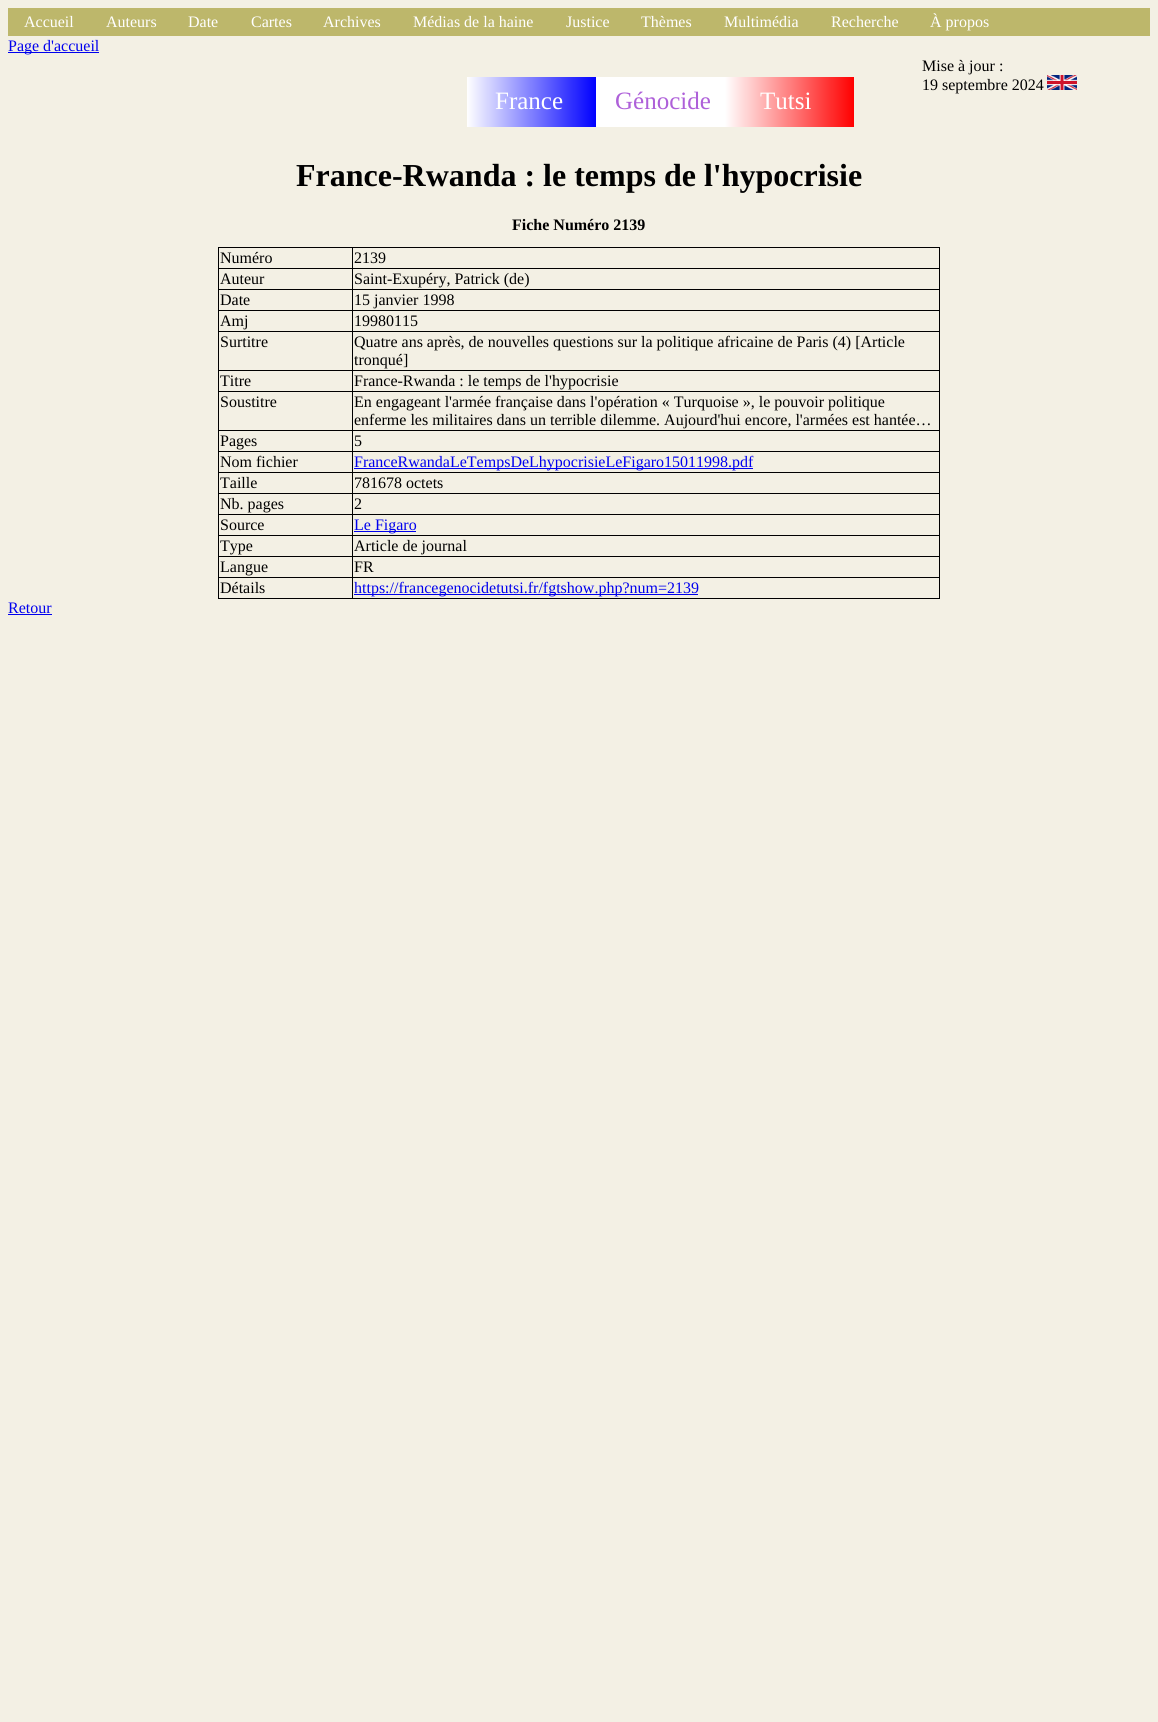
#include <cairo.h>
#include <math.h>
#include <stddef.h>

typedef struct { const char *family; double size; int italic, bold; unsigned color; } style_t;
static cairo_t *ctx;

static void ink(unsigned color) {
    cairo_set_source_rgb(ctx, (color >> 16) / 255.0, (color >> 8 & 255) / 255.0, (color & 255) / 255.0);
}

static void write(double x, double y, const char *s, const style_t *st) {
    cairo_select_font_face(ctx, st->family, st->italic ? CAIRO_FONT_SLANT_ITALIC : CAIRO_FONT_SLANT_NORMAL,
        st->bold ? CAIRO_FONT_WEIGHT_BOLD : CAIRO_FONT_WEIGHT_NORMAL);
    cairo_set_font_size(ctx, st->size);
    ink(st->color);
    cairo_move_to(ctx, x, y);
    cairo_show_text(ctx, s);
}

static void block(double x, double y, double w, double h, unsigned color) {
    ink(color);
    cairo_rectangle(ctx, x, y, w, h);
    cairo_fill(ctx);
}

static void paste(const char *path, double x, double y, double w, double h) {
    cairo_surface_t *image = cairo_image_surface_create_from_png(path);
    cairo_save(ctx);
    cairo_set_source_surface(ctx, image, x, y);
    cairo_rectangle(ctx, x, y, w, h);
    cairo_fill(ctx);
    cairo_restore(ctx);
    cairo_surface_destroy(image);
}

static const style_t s1 = {"Liberation Serif", 16, 0, 0, 0xffffff};
static const style_t s2 = {"Liberation Serif", 16, 0, 0, 0x0000ee};
static const style_t s3 = {"Liberation Serif", 16, 0, 0, 0x000000};
static const style_t s4 = {"Liberation Serif", 25, 0, 0, 0xffffff};
static const style_t s5 = {"Liberation Serif", 25, 0, 0, 0xae60d9};
static const style_t s6 = {"Liberation Serif", 32, 0, 1, 0x000000};
static const style_t s7 = {"Liberation Serif", 16, 0, 1, 0x000000};

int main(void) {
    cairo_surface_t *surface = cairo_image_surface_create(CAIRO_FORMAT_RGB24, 1158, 1722);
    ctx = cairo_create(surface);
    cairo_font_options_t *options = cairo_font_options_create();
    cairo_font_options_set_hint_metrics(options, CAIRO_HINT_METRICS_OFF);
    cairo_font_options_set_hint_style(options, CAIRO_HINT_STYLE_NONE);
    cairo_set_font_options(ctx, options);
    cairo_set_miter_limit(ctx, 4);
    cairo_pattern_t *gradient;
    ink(0xf3f0e4);
    cairo_paint(ctx);
    block(8, 8, 1142, 28, 0xbdb76b);
    write(24, 27, "Accueil", &s1);
    write(106, 27, "Auteurs", &s1);
    write(188, 27, "Date", &s1);
    write(251, 27, "Cartes", &s1);
    write(323, 27, "Archives", &s1);
    write(413, 27, "Médias de la haine", &s1);
    write(566, 27, "Justice", &s1);
    write(641, 27, "Thèmes", &s1);
    write(724, 27, "Multimédia", &s1);
    write(831, 27, "Recherche", &s1);
    write(930, 27, "À propos", &s1);
    block(8, 52, 91, 1, 0x0000ee);
    write(8, 51, "Page d'accueil", &s2);
    write(922, 71, "Mise à jour :", &s3);
    write(922, 90, "19 septembre 2024", &s3);
    paste("pic1.png", 1047, 75, 30, 15);
    gradient = cairo_pattern_create_linear(467, 77, 596, 77);
    cairo_pattern_add_color_stop_rgba(gradient, 0, 1, 1, 1, 1);
    cairo_pattern_add_color_stop_rgba(gradient, 1, 0, 0, 1, 1);
    cairo_set_source(ctx, gradient);
    cairo_pattern_destroy(gradient);
    cairo_rectangle(ctx, 467, 77, 129, 50);
    cairo_fill(ctx);
    write(495, 109, "France", &s4);
    block(596, 77, 129, 50, 0xffffff);
    write(615, 109, "Génocide", &s5);
    gradient = cairo_pattern_create_linear(725, 77, 854, 77);
    cairo_pattern_add_color_stop_rgba(gradient, 0, 1, 1, 1, 1);
    cairo_pattern_add_color_stop_rgba(gradient, 1, 1, 0, 0, 1);
    cairo_set_source(ctx, gradient);
    cairo_pattern_destroy(gradient);
    cairo_rectangle(ctx, 725, 77, 129, 50);
    cairo_fill(ctx);
    write(760, 109, "Tutsi", &s4);
    write(296, 186, "France-Rwanda : le temps de l'hypocrisie", &s6);
    write(512, 230, "Fiche Numéro 2139", &s7);
    cairo_rectangle(ctx, 218.5, 247.5, 721, 21);
    cairo_set_line_width(ctx, 1);
    cairo_stroke(ctx);
    block(352, 248, 1, 20, 0x000000);
    write(220, 263, "Numéro", &s3);
    write(354, 263, "2139", &s3);
    block(939, 269, 1, 330, 0x000000);
    block(218, 289, 722, 1, 0x000000);
    block(218, 269, 1, 21, 0x000000);
    block(352, 269, 1, 20, 0x000000);
    write(220, 284, "Auteur", &s3);
    write(354, 284, "Saint-Exupéry, Patrick (de)", &s3);
    block(218, 310, 722, 1, 0x000000);
    block(218, 290, 1, 21, 0x000000);
    block(352, 290, 1, 20, 0x000000);
    write(220, 305, "Date", &s3);
    write(354, 305, "15 janvier 1998", &s3);
    block(218, 331, 722, 1, 0x000000);
    block(218, 311, 1, 21, 0x000000);
    block(352, 311, 1, 20, 0x000000);
    write(220, 326, "Amj", &s3);
    write(354, 326, "19980115", &s3);
    block(218, 370, 722, 1, 0x000000);
    block(218, 332, 1, 39, 0x000000);
    block(352, 332, 1, 38, 0x000000);
    write(220, 347, "Surtitre", &s3);
    write(354, 347, "Quatre ans après, de nouvelles questions sur la politique africaine de Paris (4) [Article", &s3);
    write(354, 365, "tronqué]", &s3);
    block(218, 391, 722, 1, 0x000000);
    block(218, 371, 1, 21, 0x000000);
    block(352, 371, 1, 20, 0x000000);
    write(220, 386, "Titre", &s3);
    write(354, 386, "France-Rwanda : le temps de l'hypocrisie", &s3);
    block(218, 430, 722, 1, 0x000000);
    block(218, 392, 1, 39, 0x000000);
    block(352, 392, 1, 38, 0x000000);
    write(220, 407, "Soustitre", &s3);
    write(354, 407, "En engageant l'armée française dans l'opération « Turquoise », le pouvoir politique", &s3);
    write(354, 425, "enferme les militaires dans un terrible dilemme. Aujourd'hui encore, l'armées est hantée…", &s3);
    block(218, 451, 722, 1, 0x000000);
    block(218, 431, 1, 21, 0x000000);
    block(352, 431, 1, 20, 0x000000);
    write(220, 446, "Pages", &s3);
    write(354, 446, "5", &s3);
    block(218, 472, 722, 1, 0x000000);
    block(218, 452, 1, 21, 0x000000);
    block(352, 452, 1, 20, 0x000000);
    write(220, 467, "Nom fichier", &s3);
    block(354, 468, 399, 1, 0x0000ee);
    write(354, 467, "FranceRwandaLeTempsDeLhypocrisieLeFigaro15011998.pdf", &s2);
    block(218, 493, 722, 1, 0x000000);
    block(218, 473, 1, 21, 0x000000);
    block(352, 473, 1, 20, 0x000000);
    write(220, 488, "Taille", &s3);
    write(354, 488, "781678 octets", &s3);
    block(218, 514, 722, 1, 0x000000);
    block(218, 494, 1, 21, 0x000000);
    block(352, 494, 1, 20, 0x000000);
    write(220, 509, "Nb. pages", &s3);
    write(354, 509, "2", &s3);
    block(218, 535, 722, 1, 0x000000);
    block(218, 515, 1, 21, 0x000000);
    block(352, 515, 1, 20, 0x000000);
    write(220, 530, "Source", &s3);
    block(354, 531, 62, 1, 0x0000ee);
    write(354, 530, "Le Figaro", &s2);
    block(218, 556, 722, 1, 0x000000);
    block(218, 536, 1, 21, 0x000000);
    block(352, 536, 1, 20, 0x000000);
    write(220, 551, "Type", &s3);
    write(354, 551, "Article de journal", &s3);
    block(218, 577, 722, 1, 0x000000);
    block(218, 557, 1, 21, 0x000000);
    block(352, 557, 1, 20, 0x000000);
    write(220, 572, "Langue", &s3);
    write(354, 572, "FR", &s3);
    block(218, 598, 722, 1, 0x000000);
    block(218, 578, 1, 21, 0x000000);
    block(352, 578, 1, 20, 0x000000);
    write(220, 593, "Détails", &s3);
    block(354, 594, 344, 1, 0x0000ee);
    write(354, 593, "https://francegenocidetutsi.fr/fgtshow.php?num=2139", &s2);
    write(8, 613, "Retour", &s2);
    block(8, 614, 44, 1, 0x0000ee);
    cairo_surface_write_to_png(surface, "screenshot.png");
    cairo_font_options_destroy(options);
    cairo_destroy(ctx);
    cairo_surface_destroy(surface);
    return 0;
}
